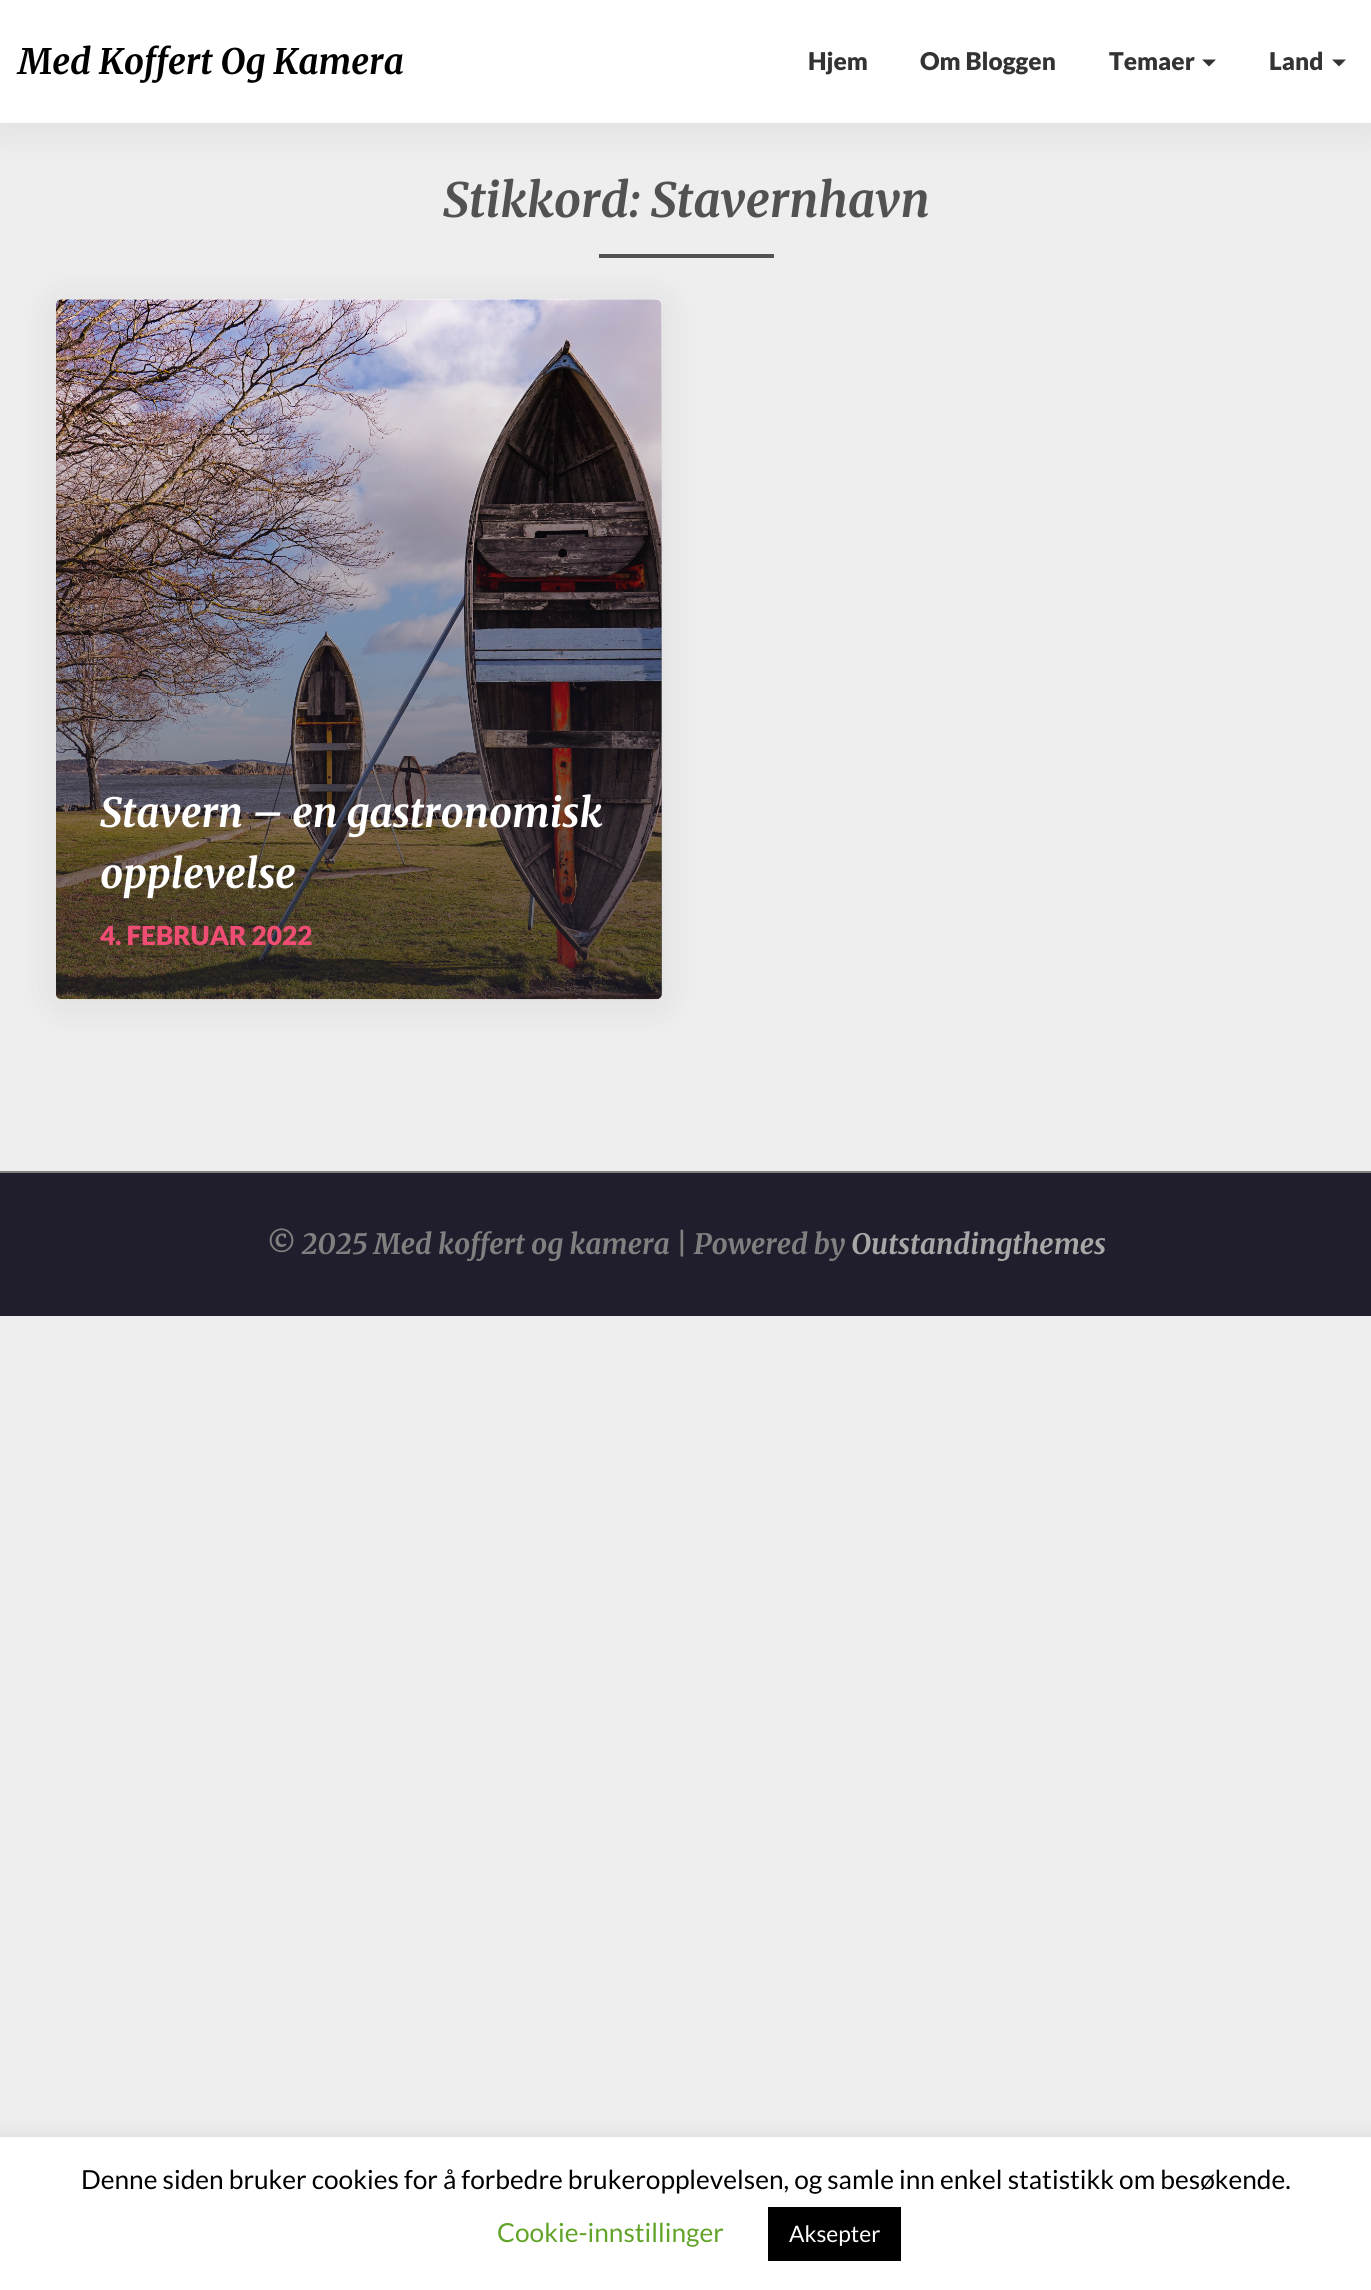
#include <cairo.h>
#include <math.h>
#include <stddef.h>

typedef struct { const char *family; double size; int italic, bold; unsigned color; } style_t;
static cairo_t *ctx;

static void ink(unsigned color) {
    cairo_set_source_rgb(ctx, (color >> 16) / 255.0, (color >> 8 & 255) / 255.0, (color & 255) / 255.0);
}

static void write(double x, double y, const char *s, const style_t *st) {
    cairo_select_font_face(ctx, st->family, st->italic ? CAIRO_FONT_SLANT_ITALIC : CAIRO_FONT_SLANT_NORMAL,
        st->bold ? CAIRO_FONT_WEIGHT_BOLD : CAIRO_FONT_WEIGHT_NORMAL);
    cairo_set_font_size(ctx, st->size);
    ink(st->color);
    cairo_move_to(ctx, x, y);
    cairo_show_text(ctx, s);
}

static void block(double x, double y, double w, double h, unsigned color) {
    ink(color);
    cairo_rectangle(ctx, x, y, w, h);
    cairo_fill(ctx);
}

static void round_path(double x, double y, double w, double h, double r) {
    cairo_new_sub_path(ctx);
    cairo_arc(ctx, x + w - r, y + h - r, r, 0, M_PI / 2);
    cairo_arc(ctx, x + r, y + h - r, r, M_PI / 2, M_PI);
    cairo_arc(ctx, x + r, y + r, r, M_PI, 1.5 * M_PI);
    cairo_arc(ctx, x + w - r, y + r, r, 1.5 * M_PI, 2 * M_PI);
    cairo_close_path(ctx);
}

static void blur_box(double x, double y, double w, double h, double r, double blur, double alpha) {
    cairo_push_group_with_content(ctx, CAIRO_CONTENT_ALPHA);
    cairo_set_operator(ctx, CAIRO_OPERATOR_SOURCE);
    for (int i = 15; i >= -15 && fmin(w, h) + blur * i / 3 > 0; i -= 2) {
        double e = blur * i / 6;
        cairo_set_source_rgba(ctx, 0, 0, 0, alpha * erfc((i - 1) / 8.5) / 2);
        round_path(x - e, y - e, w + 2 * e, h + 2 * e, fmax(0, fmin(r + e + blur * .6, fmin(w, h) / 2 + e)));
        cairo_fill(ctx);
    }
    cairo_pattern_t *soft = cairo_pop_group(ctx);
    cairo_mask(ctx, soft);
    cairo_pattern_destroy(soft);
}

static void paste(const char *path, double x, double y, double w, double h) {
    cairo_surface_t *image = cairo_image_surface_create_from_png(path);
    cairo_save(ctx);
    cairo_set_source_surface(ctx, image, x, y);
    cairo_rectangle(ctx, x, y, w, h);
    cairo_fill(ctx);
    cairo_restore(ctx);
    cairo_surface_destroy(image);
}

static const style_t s1 = {"Merriweather Light", 35, 1, 0, 0x000000};
static const style_t s2 = {"Lato Black", 24.5, 0, 0, 0x333333};
static const style_t s3 = {"Merriweather Light", 47.25, 1, 0, 0x525252};
static const style_t s4 = {"Merriweather Light", 40.25, 1, 0, 0xffffff};
static const style_t s5 = {"Lato Black", 26.25, 0, 0, 0xf04d75};
static const style_t s6 = {"Merriweather Light", 28, 1, 0, 0x7f7f7f};
static const style_t s7 = {"Merriweather Light", 28, 1, 0, 0xa7a7a7};
static const style_t s8 = {"Lato", 26.25, 0, 0, 0x000000};
static const style_t s9 = {"Lato", 26.25, 0, 0, 0x62a329};
static const style_t s10 = {"Lato", 22.75, 0, 0, 0xffffff};

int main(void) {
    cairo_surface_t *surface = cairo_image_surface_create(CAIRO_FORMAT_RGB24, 1371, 2290);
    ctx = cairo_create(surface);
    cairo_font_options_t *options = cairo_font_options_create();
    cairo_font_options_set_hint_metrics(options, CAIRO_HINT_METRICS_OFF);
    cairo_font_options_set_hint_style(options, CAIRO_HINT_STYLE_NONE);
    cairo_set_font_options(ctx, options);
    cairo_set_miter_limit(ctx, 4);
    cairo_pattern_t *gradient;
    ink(0xeeeeee);
    cairo_paint(ctx);
    ink(0x000000);
    blur_box(0, 4, 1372, 122, 0, 22, 0.08);
    block(0, 0, 1371, 123, 0xffffff);
    write(18, 74, "Med Koffert Og Kamera", &s1);
    write(808, 70, "Hjem", &s2);
    write(920, 70, "Om Bloggen", &s2);
    write(1109, 70, "Temaer", &s2);
    cairo_new_path(ctx);
    cairo_move_to(ctx, 1202, 59.5);
    cairo_line_to(ctx, 1216, 59.5);
    cairo_line_to(ctx, 1209, 66.5);
    cairo_close_path(ctx);
    cairo_fill(ctx);
    write(1269, 70, "Land", &s2);
    cairo_new_path(ctx);
    cairo_move_to(ctx, 1332, 59.5);
    cairo_line_to(ctx, 1346, 59.5);
    cairo_line_to(ctx, 1339, 66.5);
    cairo_close_path(ctx);
    cairo_fill(ctx);
    write(443, 217, "Stikkord: Stavernhavn", &s3);
    block(599, 254, 175, 4, 0x525252);
    ink(0x000000);
    blur_box(56, 303, 606, 700, 5, 22, 0.08);
    ink(0xffffff);
    round_path(56, 299, 606, 700, 5);
    cairo_fill(ctx);
    paste("pic1.png", 56, 299, 606, 701);
    gradient = cairo_pattern_create_linear(359, 299, 359, 999);
    cairo_pattern_add_color_stop_rgba(gradient, 0, 0.125, 0.118, 0.173, 0);
    cairo_pattern_add_color_stop_rgba(gradient, 0.88, 0.125, 0.118, 0.173, 0.64);
    cairo_pattern_add_color_stop_rgba(gradient, 0.89, 0.125, 0.118, 0.173, 0.65);
    cairo_set_source(ctx, gradient);
    cairo_pattern_destroy(gradient);
    round_path(56, 299, 606, 700, 5);
    cairo_fill(ctx);
    write(100, 827, "Stavern – en gastronomisk", &s4);
    write(100, 888, "opplevelse", &s4);
    write(100, 945, "4. FEBRUAR 2022", &s5);
    block(0, 1173, 1371, 143, 0x201e2c);
    block(0, 1171, 1371, 2, 0x7f7f7f);
    write(266, 1254, "© 2025 Med koffert og kamera | Powered by", &s6);
    write(851, 1254, "Outstandingthemes", &s7);
    ink(0xacabab);
    blur_box(0, 2135, 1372, 154, 0, 9, 0.3);
    block(0, 2137, 1371, 153, 0xffffff);
    write(81, 2189, "Denne siden bruker cookies for å forbedre brukeropplevelsen, og samle inn enkel statistikk om besøkende.", &s8);
    write(497, 2242, "Cookie-innstillinger", &s9);
    block(768, 2207, 133, 54, 0x000000);
    write(789, 2242, "Aksepter", &s10);
    cairo_surface_write_to_png(surface, "screenshot.png");
    cairo_font_options_destroy(options);
    cairo_destroy(ctx);
    cairo_surface_destroy(surface);
    return 0;
}
